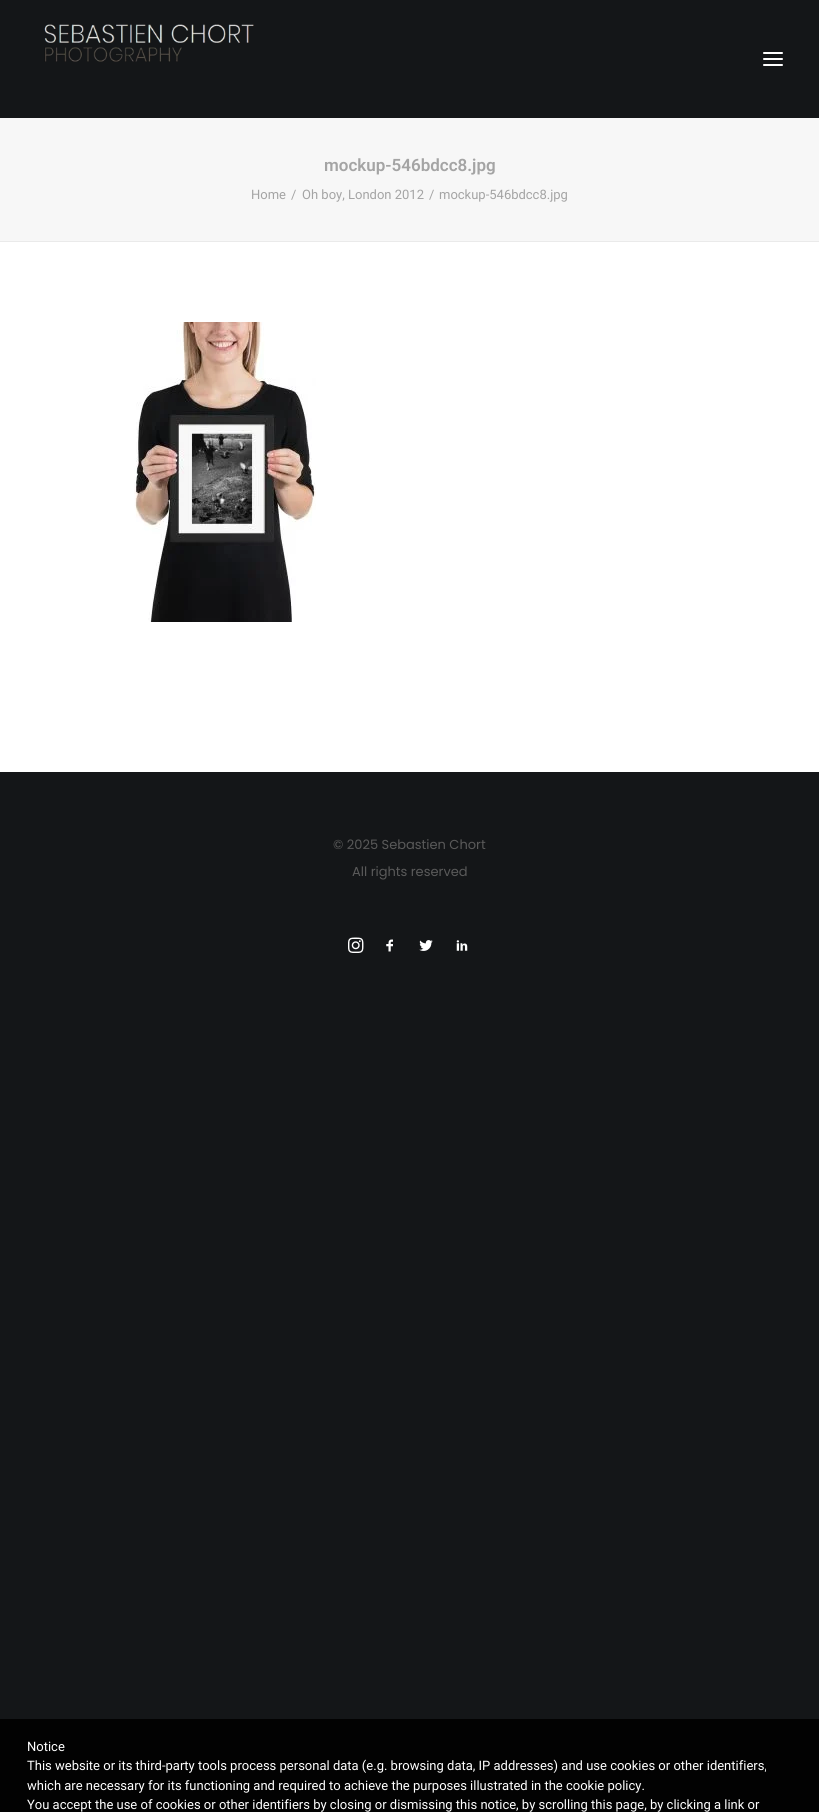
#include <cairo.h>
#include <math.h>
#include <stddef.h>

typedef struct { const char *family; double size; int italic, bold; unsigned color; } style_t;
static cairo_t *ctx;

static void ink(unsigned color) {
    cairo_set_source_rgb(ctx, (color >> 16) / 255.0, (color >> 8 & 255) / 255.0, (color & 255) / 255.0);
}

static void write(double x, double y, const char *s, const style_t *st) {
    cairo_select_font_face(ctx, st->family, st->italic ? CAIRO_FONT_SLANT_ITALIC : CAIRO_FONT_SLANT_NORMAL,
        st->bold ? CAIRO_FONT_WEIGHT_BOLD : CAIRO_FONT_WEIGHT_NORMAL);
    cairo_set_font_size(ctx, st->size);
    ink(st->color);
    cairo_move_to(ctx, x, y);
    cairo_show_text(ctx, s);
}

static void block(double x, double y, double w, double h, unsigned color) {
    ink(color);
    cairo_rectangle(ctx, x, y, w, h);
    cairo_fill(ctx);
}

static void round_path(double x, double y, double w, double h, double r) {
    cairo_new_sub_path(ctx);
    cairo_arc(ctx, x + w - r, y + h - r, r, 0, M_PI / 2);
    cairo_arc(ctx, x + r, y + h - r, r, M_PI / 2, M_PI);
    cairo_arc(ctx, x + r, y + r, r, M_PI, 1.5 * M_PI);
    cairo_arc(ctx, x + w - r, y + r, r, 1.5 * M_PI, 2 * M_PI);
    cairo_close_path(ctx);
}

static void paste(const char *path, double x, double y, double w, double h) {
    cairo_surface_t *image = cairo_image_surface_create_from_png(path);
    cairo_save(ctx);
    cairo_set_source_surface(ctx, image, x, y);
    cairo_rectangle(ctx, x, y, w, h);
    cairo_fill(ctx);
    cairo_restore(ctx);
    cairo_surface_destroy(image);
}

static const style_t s1 = {"Roboto SemiBold", 17, 0, 0, 0xa4a4a4};
static const style_t s2 = {"Roboto", 13, 0, 0, 0xa4a4a4};
static const style_t s3 = {"Poppins", 13, 0, 0, 0x5a5a5a};
static const style_t s4 = {"Roboto", 13, 0, 0, 0xffffff};

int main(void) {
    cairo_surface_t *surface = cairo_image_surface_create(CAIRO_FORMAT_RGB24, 819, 1812);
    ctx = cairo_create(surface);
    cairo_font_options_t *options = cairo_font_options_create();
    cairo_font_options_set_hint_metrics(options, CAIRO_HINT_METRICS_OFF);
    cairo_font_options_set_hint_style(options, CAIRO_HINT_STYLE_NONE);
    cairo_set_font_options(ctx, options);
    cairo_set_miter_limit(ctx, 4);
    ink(0x141618);
    cairo_paint(ctx);
    paste("pic1.png", 44, 24, 210, 38);
    ink(0xffffff);
    round_path(763, 58, 20, 2, 1);
    cairo_fill(ctx);
    round_path(763, 52, 20, 2, 1);
    cairo_fill(ctx);
    round_path(763, 64, 20, 2, 1);
    cairo_fill(ctx);
    block(0, 118, 819, 123, 0xf7f7f7);
    block(0, 241, 819, 1, 0xeaeaea);
    write(324, 171, "mockup-546bdcc8.jpg", &s1);
    write(251, 199, "Home", &s2);
    write(291, 199, "/", &s2);
    write(302, 199, "Oh boy, London 2012", &s2);
    write(429, 199, "/", &s2);
    write(439, 199, "mockup-546bdcc8.jpg", &s2);
    block(0, 242, 819, 530, 0xffffff);
    paste("pic2.png", 134, 322, 182, 300);
    write(333, 849, "© 2025 Sebastien Chort", &s3);
    write(352, 876, "All rights reserved", &s3);
    paste("pic3.png", 348, 937, 16, 16);
    paste("pic4.png", 386, 939, 7, 13);
    paste("pic5.png", 419, 940, 14, 11);
    paste("pic6.png", 456, 940, 12, 11);
    block(0, 1719, 819, 93, 0x020202);
    write(27, 1751, "Notice", &s4);
    write(27, 1770, "This website or its third-party tools process personal data (e.g. browsing data, IP addresses) and use cookies or other identifiers,", &s4);
    write(27, 1790, "which are necessary for its functioning and required to achieve the purposes illustrated in the cookie policy.", &s4);
    write(27, 1809, "You accept the use of cookies or other identifiers by closing or dismissing this notice, by scrolling this page, by clicking a link or", &s4);
    cairo_surface_write_to_png(surface, "screenshot.png");
    cairo_font_options_destroy(options);
    cairo_destroy(ctx);
    cairo_surface_destroy(surface);
    return 0;
}
